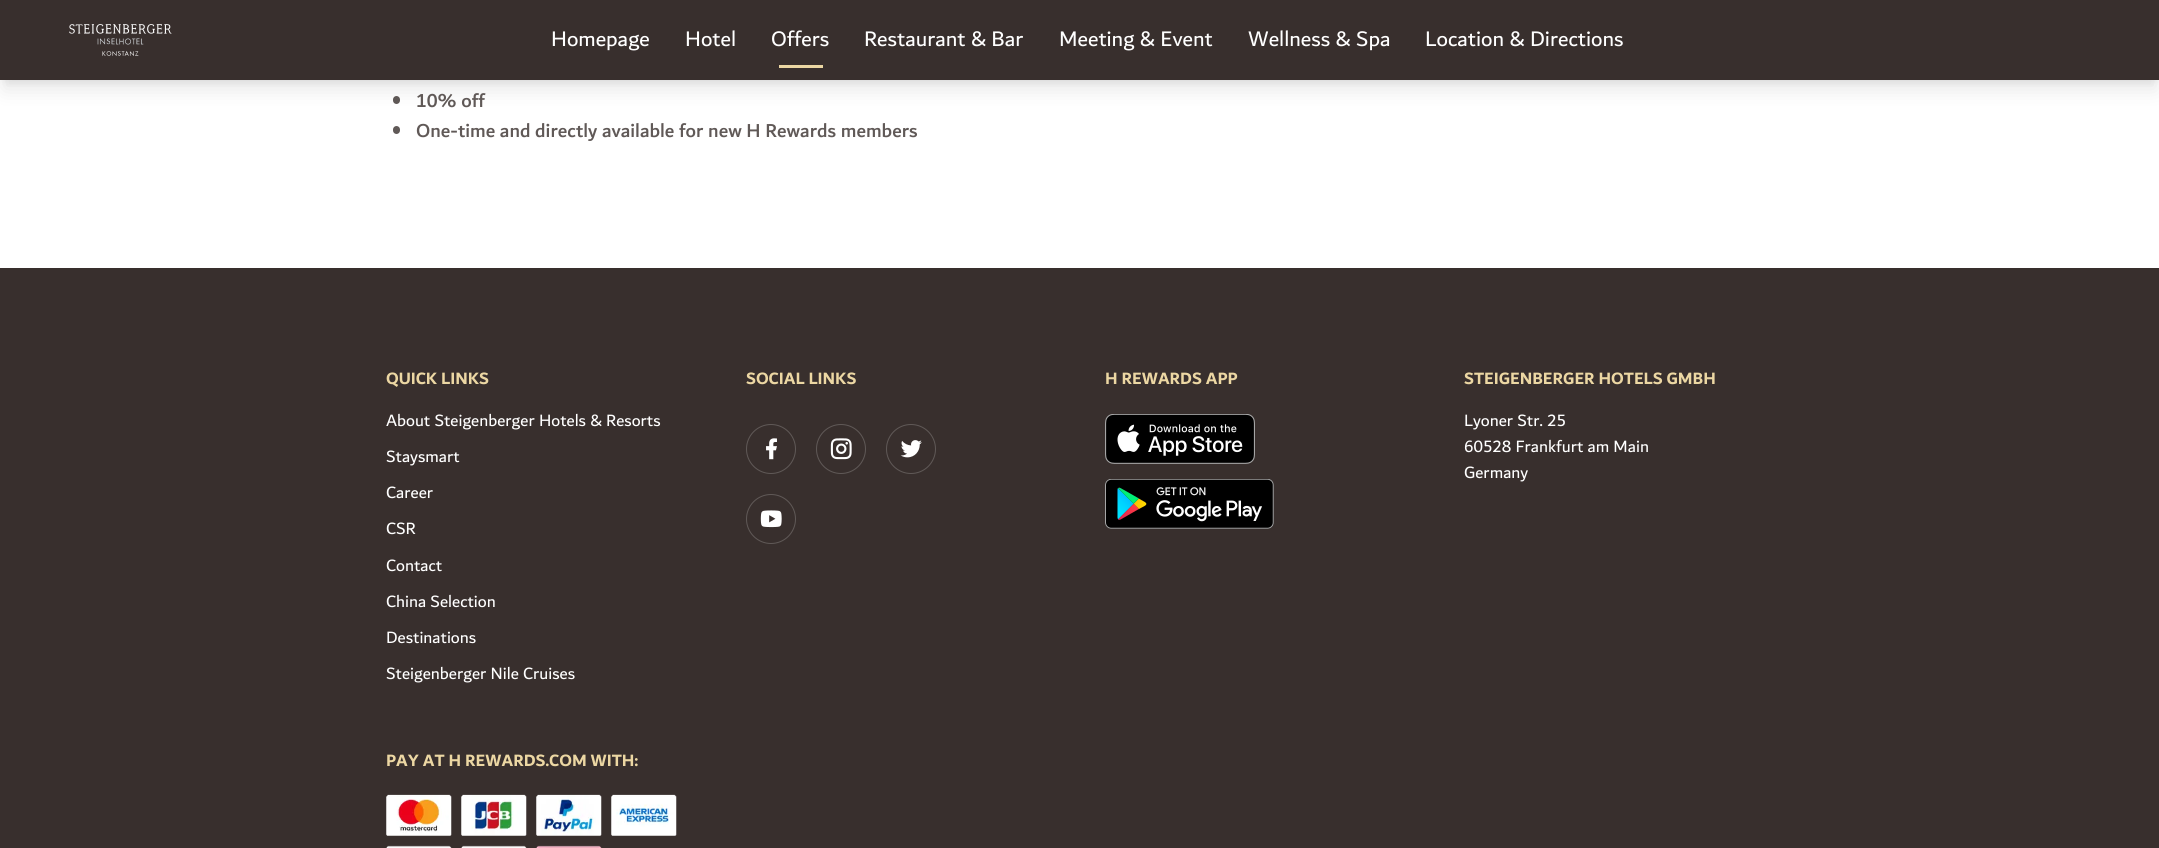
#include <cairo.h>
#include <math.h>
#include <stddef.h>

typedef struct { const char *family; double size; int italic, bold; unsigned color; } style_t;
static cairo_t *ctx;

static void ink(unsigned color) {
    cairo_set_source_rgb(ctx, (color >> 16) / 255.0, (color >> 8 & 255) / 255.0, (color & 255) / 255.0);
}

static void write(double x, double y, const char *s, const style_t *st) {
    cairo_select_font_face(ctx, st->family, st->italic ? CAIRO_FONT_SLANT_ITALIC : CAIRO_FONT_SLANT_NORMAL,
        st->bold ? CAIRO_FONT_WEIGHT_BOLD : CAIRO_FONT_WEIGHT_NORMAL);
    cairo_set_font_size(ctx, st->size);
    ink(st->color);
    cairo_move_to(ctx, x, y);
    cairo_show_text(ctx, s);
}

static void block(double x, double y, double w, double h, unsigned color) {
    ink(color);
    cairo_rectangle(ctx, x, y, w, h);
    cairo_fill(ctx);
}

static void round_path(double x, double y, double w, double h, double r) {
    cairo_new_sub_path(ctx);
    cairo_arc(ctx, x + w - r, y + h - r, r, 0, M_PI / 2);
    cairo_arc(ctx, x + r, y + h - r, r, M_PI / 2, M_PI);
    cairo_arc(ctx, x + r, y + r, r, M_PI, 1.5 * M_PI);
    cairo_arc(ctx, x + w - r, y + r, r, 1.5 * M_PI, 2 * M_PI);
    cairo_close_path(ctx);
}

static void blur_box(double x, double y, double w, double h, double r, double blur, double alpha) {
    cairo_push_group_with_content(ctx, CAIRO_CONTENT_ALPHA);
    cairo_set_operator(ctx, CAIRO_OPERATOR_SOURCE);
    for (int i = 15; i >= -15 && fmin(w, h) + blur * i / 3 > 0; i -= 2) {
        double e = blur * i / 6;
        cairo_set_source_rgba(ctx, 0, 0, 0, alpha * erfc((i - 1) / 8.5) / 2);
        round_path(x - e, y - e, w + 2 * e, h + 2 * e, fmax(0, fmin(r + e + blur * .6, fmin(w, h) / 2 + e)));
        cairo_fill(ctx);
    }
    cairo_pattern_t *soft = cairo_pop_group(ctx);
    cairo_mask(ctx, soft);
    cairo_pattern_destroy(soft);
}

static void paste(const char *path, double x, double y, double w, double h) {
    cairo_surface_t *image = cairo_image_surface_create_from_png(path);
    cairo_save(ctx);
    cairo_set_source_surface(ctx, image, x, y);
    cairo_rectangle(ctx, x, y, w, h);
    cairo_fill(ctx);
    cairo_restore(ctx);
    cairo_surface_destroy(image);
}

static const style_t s1 = {"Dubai", 22.5, 0, 0, 0xffffff};
static const style_t s2 = {"Dubai Medium", 20, 0, 0, 0x605957};
static const style_t s3 = {"Dubai", 17.5, 0, 1, 0xecd7a3};
static const style_t s4 = {"Dubai", 17.5, 0, 0, 0xffffff};

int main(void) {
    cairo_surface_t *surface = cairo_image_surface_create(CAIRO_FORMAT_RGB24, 2159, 848);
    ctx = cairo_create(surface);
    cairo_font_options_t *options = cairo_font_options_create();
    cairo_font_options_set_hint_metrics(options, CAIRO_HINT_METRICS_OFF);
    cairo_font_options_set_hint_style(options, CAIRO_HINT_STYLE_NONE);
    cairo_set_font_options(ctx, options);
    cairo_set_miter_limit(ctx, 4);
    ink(0xffffff);
    cairo_paint(ctx);
    ink(0x000000);
    blur_box(5, 10, 2150, 70, 0, 4, 0.1);
    ink(0x605957);
    round_path(393, 96, 7, 8, 3.5);
    cairo_fill(ctx);
    ink(0x000000);
    blur_box(4, 16, 2152, 73, 0, 9.5, 0.1);
    block(0, 0, 2159, 80, 0x382f2d);
    paste("pic1.png", 69, 24, 103, 32);
    write(551, 46, "Homepage", &s1);
    write(685, 46, "Hotel", &s1);
    write(771, 46, "Offers", &s1);
    block(779, 65, 44, 3, 0xecd7a3);
    write(864, 46, "Restaurant & Bar", &s1);
    write(1059, 46, "Meeting & Event", &s1);
    write(1248, 46, "Wellness & Spa", &s1);
    write(1425, 46, "Location & Directions", &s1);
    write(416, 107, "10% off", &s2);
    round_path(393, 126, 7, 8, 3.5);
    cairo_fill(ctx);
    write(416, 137, "One-time and directly available for new H Rewards members", &s2);
    block(0, 268, 2159, 580, 0x382f2d);
    write(386, 384, "QUICK LINKS", &s3);
    write(386, 426, "About Steigenberger Hotels & Resorts", &s4);
    write(386, 462, "Staysmart", &s4);
    write(386, 498, "Career", &s4);
    write(386, 534, "CSR", &s4);
    write(386, 571, "Contact", &s4);
    write(386, 607, "China Selection", &s4);
    write(386, 643, "Destinations", &s4);
    write(386, 679, "Steigenberger Nile Cruises", &s4);
    write(746, 384, "SOCIAL LINKS", &s3);
    cairo_new_path(ctx);
    cairo_arc(ctx, 771, 449, 24.5, 0, 2 * M_PI);
    ink(0x605957);
    cairo_set_line_width(ctx, 1);
    cairo_stroke(ctx);
    paste("pic2.png", 766, 438, 11, 22);
    cairo_arc(ctx, 841, 449, 24.5, 0, 2 * M_PI);
    cairo_stroke(ctx);
    paste("pic3.png", 830, 438, 22, 22);
    cairo_arc(ctx, 911, 449, 24.5, 0, 2 * M_PI);
    cairo_stroke(ctx);
    paste("pic4.png", 900, 440, 22, 18);
    cairo_arc(ctx, 771, 519, 24.5, 0, 2 * M_PI);
    cairo_stroke(ctx);
    paste("pic5.png", 760, 510, 22, 18);
    write(1105, 384, "H REWARDS APP", &s3);
    paste("pic6.png", 1105, 414, 150, 50);
    paste("pic7.png", 1105, 479, 169, 50);
    write(1464, 384, "STEIGENBERGER HOTELS GMBH", &s3);
    write(1464, 426, "Lyoner Str. 25", &s4);
    write(1464, 452, "60528 Frankfurt am Main", &s4);
    write(1464, 478, "Germany", &s4);
    write(386, 766, "PAY AT H REWARDS.COM WITH:", &s3);
    paste("pic8.png", 386, 794, 66, 42);
    paste("pic9.png", 461, 794, 66, 42);
    paste("pic10.png", 536, 794, 66, 42);
    paste("pic11.png", 611, 794, 66, 42);
    paste("pic12.png", 386, 845, 66, 3);
    paste("pic13.png", 461, 845, 66, 3);
    paste("pic14.png", 536, 845, 66, 3);
    cairo_surface_write_to_png(surface, "screenshot.png");
    cairo_font_options_destroy(options);
    cairo_destroy(ctx);
    cairo_surface_destroy(surface);
    return 0;
}
